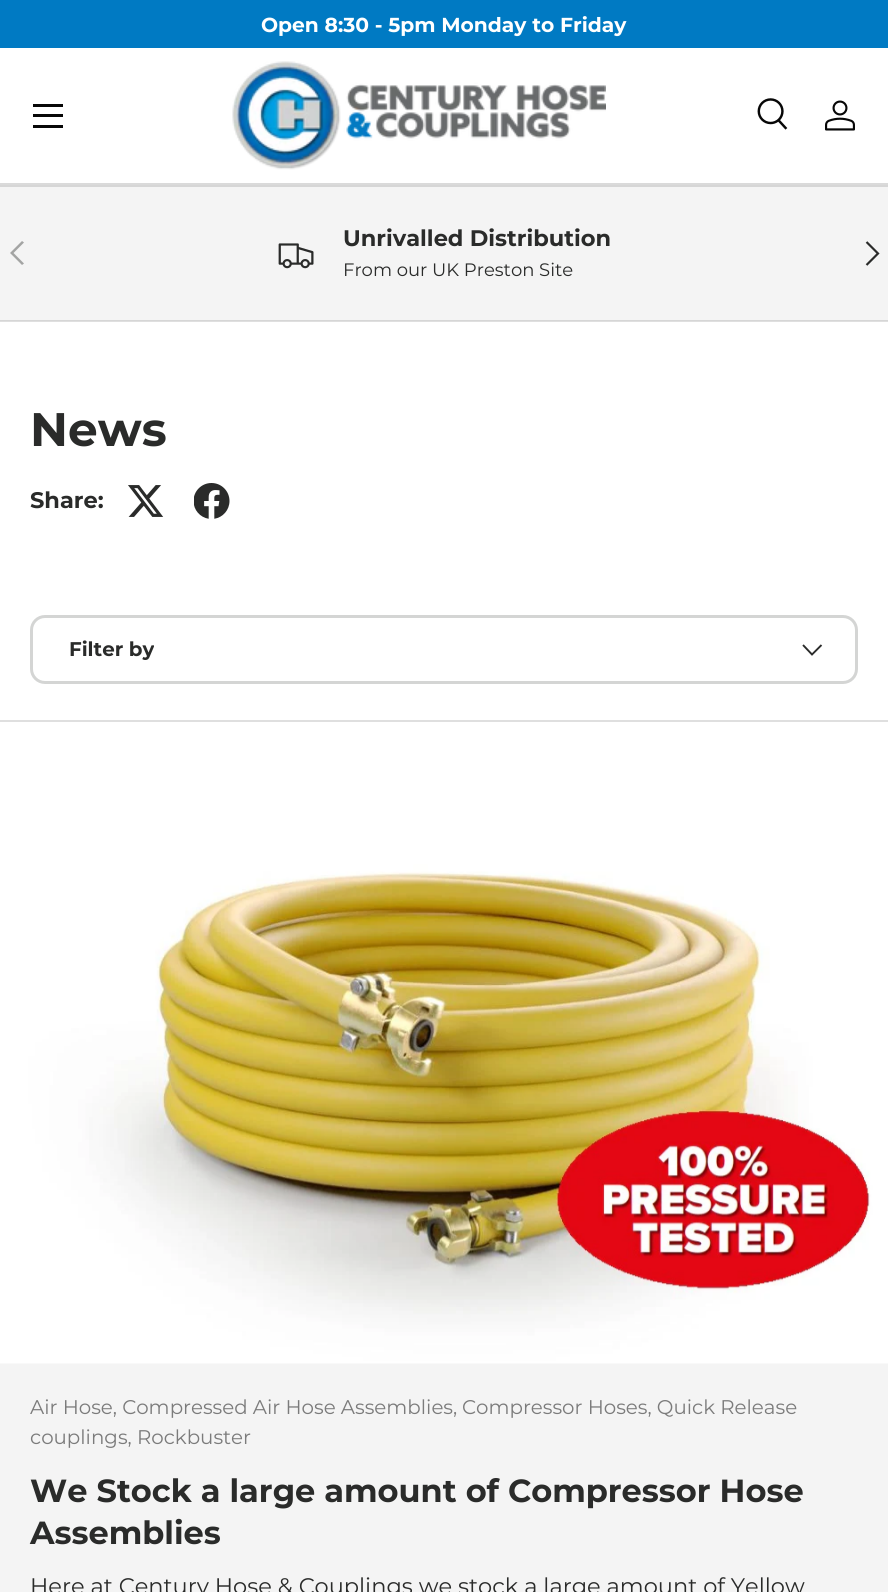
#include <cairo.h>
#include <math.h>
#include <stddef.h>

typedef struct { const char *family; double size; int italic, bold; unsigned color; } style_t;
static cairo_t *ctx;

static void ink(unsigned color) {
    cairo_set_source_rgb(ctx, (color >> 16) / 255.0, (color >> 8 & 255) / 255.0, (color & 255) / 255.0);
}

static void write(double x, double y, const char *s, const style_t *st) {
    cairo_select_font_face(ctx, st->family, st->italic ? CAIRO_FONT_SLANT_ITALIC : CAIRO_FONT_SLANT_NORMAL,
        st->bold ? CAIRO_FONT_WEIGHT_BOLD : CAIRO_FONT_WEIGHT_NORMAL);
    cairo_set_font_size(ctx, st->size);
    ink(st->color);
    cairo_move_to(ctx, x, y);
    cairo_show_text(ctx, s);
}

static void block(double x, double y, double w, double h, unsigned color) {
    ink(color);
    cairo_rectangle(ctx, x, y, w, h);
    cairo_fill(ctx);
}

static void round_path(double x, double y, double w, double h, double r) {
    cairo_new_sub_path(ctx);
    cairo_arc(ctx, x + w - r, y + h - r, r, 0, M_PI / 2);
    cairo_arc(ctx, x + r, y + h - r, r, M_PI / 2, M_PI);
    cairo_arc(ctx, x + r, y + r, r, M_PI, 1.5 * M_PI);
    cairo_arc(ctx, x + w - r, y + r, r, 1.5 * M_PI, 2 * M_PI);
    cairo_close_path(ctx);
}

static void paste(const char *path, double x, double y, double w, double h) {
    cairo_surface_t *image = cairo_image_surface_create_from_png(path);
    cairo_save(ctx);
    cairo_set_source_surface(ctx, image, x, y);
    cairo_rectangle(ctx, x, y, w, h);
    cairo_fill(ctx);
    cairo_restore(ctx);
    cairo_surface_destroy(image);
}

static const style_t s1 = {"Montserrat", 20.25, 0, 1, 0xffffff};
static const style_t s2 = {"Montserrat", 22.5, 0, 1, 0x2a2b2a};
static const style_t s3 = {"Montserrat", 18, 0, 0, 0x2a2b2a};
static const style_t s4 = {"Montserrat", 47, 0, 1, 0x2a2b2a};
static const style_t s5 = {"Montserrat", 19.8, 0, 1, 0x2a2b2a};
static const style_t s6 = {"Montserrat", 19.8, 0, 0, 0x7b7b7b};
static const style_t s7 = {"Montserrat", 32, 0, 1, 0x2a2b2a};
static const style_t s8 = {"Montserrat", 22.5, 0, 0, 0x2a2b2a};

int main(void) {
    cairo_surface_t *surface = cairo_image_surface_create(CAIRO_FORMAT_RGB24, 888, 1592);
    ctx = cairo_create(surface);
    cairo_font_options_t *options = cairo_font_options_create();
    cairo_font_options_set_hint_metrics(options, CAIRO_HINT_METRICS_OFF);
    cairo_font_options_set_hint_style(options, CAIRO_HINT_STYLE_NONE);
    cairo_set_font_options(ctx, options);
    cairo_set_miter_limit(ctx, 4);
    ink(0xffffff);
    cairo_paint(ctx);
    block(0, 321, 888, 1, 0xdfdfdf);
    block(0, 0, 888, 48, 0x007ac3);
    write(261, 32, "Open 8:30 - 5pm Monday to Friday", &s1);
    block(0, 183, 888, 2, 0xdadada);
    block(33, 104, 30, 3, 0x070707);
    block(33, 125, 30, 3, 0x070707);
    block(33, 114, 30, 3, 0x070707);
    paste("pic1.png", 232, 61, 374, 109);
    paste("pic2.png", 757, 98, 31, 32);
    paste("pic3.png", 825, 100, 30, 31);
    block(0, 187, 888, 133, 0xf4f4f4);
    block(0, 320, 888, 1, 0xd6d6d6);
    block(0, 185, 888, 2, 0xd6d6d6);
    paste("pic4.png", 278, 243, 36, 26);
    write(343, 246, "Unrivalled Distribution", &s2);
    write(343, 276, "From our UK Preston Site", &s3);
    ink(0xa3a4a3);
    cairo_new_path(ctx);
    cairo_move_to(ctx, 10, 253);
    cairo_line_to(ctx, 22, 241);
    cairo_line_to(ctx, 24, 242.5);
    cairo_line_to(ctx, 13.5, 253);
    cairo_line_to(ctx, 24, 263.5);
    cairo_line_to(ctx, 22, 265);
    cairo_close_path(ctx);
    cairo_fill(ctx);
    cairo_new_path(ctx);
    cairo_move_to(ctx, 866.5, 242);
    cairo_line_to(ctx, 878, 253.5);
    cairo_line_to(ctx, 866.5, 265);
    ink(0x2a2b2a);
    cairo_set_line_width(ctx, 2.2);
    cairo_stroke(ctx);
    write(30, 446, "News", &s4);
    write(30, 508, "Share:", &s2);
    paste("pic5.png", 128, 485, 36, 32);
    paste("pic6.png", 194, 483, 36, 36);
    round_path(31.5, 616.5, 825, 66, 13.5);
    ink(0xd4d5d4);
    cairo_set_line_width(ctx, 3);
    cairo_stroke(ctx);
    write(69, 656, "Filter by", &s5);
    cairo_new_path(ctx);
    cairo_move_to(ctx, 821.5, 645);
    cairo_line_to(ctx, 812, 654.5);
    cairo_line_to(ctx, 803, 645);
    cairo_set_line_width(ctx, 1.9);
    cairo_stroke(ctx);
    block(0, 720, 888, 2, 0xdfdfdf);
    block(0, 1363, 888, 229, 0xf4f4f4);
    paste("pic7.png", 0, 758, 888, 606);
    write(30, 1414, "Air Hose, Compressed Air Hose Assemblies,", &s6);
    write(462, 1414, "Compressor Hoses, Quick Release", &s6);
    write(30, 1444, "couplings, Rockbuster", &s6);
    write(30, 1502, "We Stock a large amount of Compressor Hose", &s7);
    write(30, 1544, "Assemblies", &s7);
    write(30, 1594, "Here at Century Hose & Couplings we stock a large amount of Yellow", &s8);
    cairo_surface_write_to_png(surface, "screenshot.png");
    cairo_font_options_destroy(options);
    cairo_destroy(ctx);
    cairo_surface_destroy(surface);
    return 0;
}
